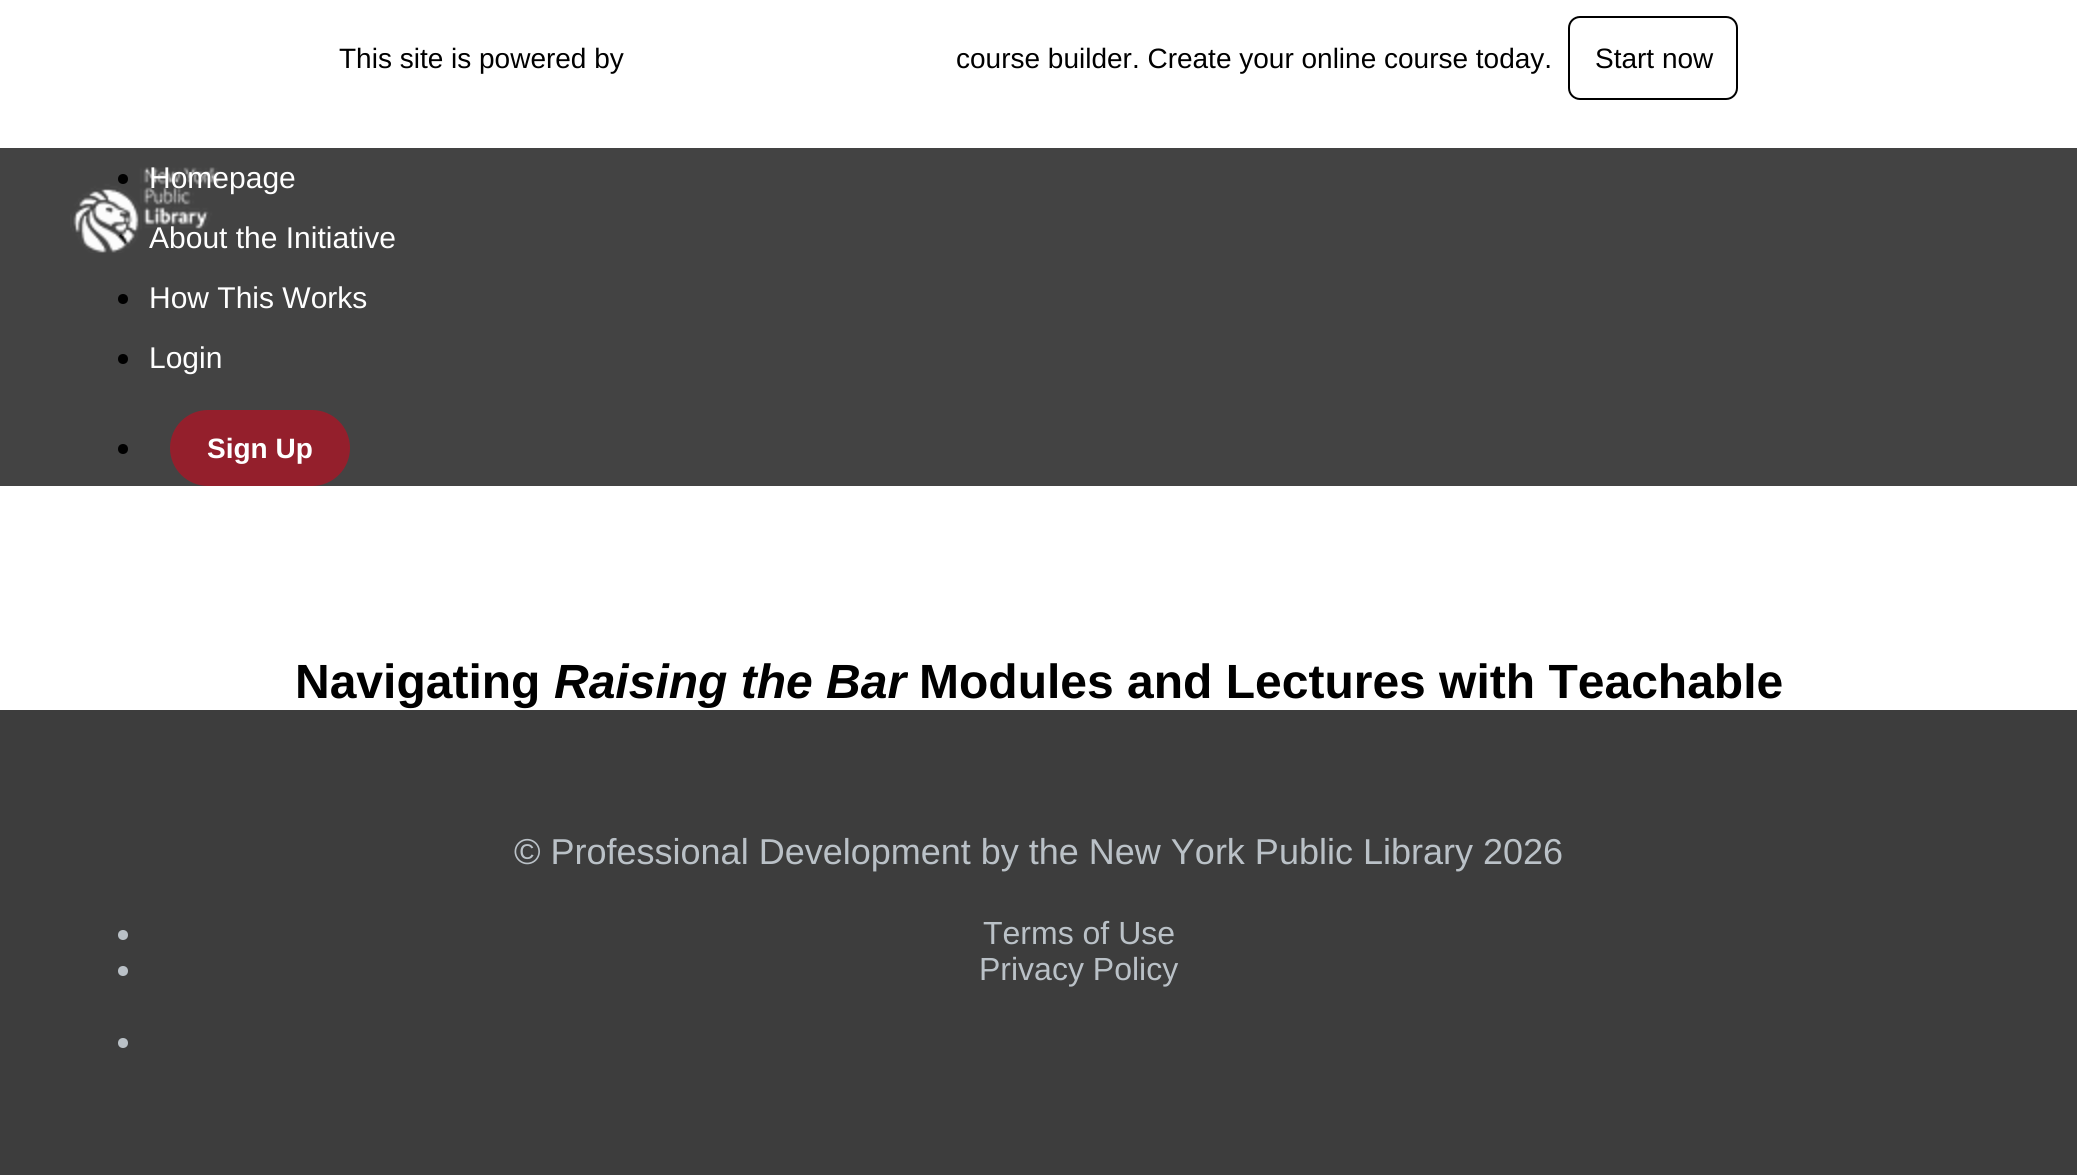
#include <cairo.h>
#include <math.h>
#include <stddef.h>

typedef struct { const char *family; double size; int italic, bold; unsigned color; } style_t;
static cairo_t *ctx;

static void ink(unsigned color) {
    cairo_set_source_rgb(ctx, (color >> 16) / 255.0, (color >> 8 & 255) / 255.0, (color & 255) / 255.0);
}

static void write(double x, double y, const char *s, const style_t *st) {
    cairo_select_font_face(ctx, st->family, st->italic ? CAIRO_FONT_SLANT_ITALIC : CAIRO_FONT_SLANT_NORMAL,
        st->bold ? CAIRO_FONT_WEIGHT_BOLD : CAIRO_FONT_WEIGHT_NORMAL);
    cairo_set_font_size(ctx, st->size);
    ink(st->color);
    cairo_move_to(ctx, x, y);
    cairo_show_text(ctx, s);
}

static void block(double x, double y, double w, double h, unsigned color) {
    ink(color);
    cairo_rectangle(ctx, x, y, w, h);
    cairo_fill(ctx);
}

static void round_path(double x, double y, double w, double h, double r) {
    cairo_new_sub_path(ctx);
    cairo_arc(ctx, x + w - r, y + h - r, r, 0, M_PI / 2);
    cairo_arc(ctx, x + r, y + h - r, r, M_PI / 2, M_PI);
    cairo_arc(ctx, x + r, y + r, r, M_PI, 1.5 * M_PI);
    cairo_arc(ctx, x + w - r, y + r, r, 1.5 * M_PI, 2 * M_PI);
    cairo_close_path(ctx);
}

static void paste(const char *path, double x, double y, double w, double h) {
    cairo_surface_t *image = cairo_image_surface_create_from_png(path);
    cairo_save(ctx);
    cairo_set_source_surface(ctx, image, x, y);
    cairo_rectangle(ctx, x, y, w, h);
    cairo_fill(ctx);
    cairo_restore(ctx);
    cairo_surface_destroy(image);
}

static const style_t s1 = {"Liberation Sans", 28, 0, 0, 0x000000};
static const style_t s2 = {"Liberation Sans", 30, 0, 0, 0xffffff};
static const style_t s3 = {"Liberation Sans", 28, 0, 1, 0xffffff};
static const style_t s4 = {"Liberation Sans", 48, 0, 1, 0x000000};
static const style_t s5 = {"Liberation Sans", 48, 1, 1, 0x000000};
static const style_t s6 = {"Liberation Sans", 36, 0, 0, 0xbac1c7};
static const style_t s7 = {"Liberation Sans", 32, 0, 0, 0xbac1c7};

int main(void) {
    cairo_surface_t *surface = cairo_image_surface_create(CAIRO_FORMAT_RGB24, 2077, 1175);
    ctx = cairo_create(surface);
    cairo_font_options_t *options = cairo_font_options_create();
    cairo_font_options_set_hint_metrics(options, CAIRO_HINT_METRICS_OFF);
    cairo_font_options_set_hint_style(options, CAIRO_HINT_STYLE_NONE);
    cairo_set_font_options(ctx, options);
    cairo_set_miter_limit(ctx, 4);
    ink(0xffffff);
    cairo_paint(ctx);
    write(339, 68, "This site is powered by", &s1);
    write(956, 68, "course builder. Create your online course today.", &s1);
    round_path(1569, 17, 168, 82, 11);
    cairo_stroke(ctx);
    write(1595, 68, "Start now", &s1);
    block(0, 148, 2077, 338, 0x434343);
    ink(0x000000);
    cairo_new_path(ctx);
    cairo_arc(ctx, 123, 179, 5, 0, 2 * M_PI);
    cairo_fill(ctx);
    write(149, 188, "Homepage", &s2);
    ink(0x000000);
    cairo_new_path(ctx);
    cairo_arc(ctx, 123, 239, 5, 0, 2 * M_PI);
    cairo_fill(ctx);
    write(149, 248, "About the Initiative", &s2);
    paste("pic1.png", 70, 167, 151, 86);
    ink(0x000000);
    cairo_arc(ctx, 123, 299, 5, 0, 2 * M_PI);
    cairo_fill(ctx);
    write(149, 308, "How This Works", &s2);
    ink(0x000000);
    cairo_new_path(ctx);
    cairo_arc(ctx, 123, 359, 5, 0, 2 * M_PI);
    cairo_fill(ctx);
    write(149, 368, "Login", &s2);
    ink(0x000000);
    cairo_new_path(ctx);
    cairo_arc(ctx, 123, 449, 5, 0, 2 * M_PI);
    cairo_fill(ctx);
    ink(0x941f2c);
    round_path(171, 411, 178, 74, 37);
    cairo_fill_preserve(ctx);
    cairo_stroke(ctx);
    write(207, 458, "Sign Up", &s3);
    write(295, 698, "Navigating", &s4);
    write(554, 698, "Raising the Bar", &s5);
    write(919, 698, "Modules and Lectures with Teachable", &s4);
    block(0, 710, 2077, 465, 0x3d3d3d);
    write(514, 864, "© Professional Development by the New York Public Library 2026", &s6);
    cairo_new_path(ctx);
    cairo_arc(ctx, 123, 935, 5, 0, 2 * M_PI);
    cairo_fill(ctx);
    write(983, 944, "Terms of Use", &s7);
    cairo_new_path(ctx);
    cairo_arc(ctx, 123, 971, 5, 0, 2 * M_PI);
    cairo_fill(ctx);
    write(979, 980, "Privacy Policy", &s7);
    cairo_new_path(ctx);
    cairo_arc(ctx, 123, 1043, 5, 0, 2 * M_PI);
    cairo_fill(ctx);
    cairo_surface_write_to_png(surface, "screenshot.png");
    cairo_font_options_destroy(options);
    cairo_destroy(ctx);
    cairo_surface_destroy(surface);
    return 0;
}
